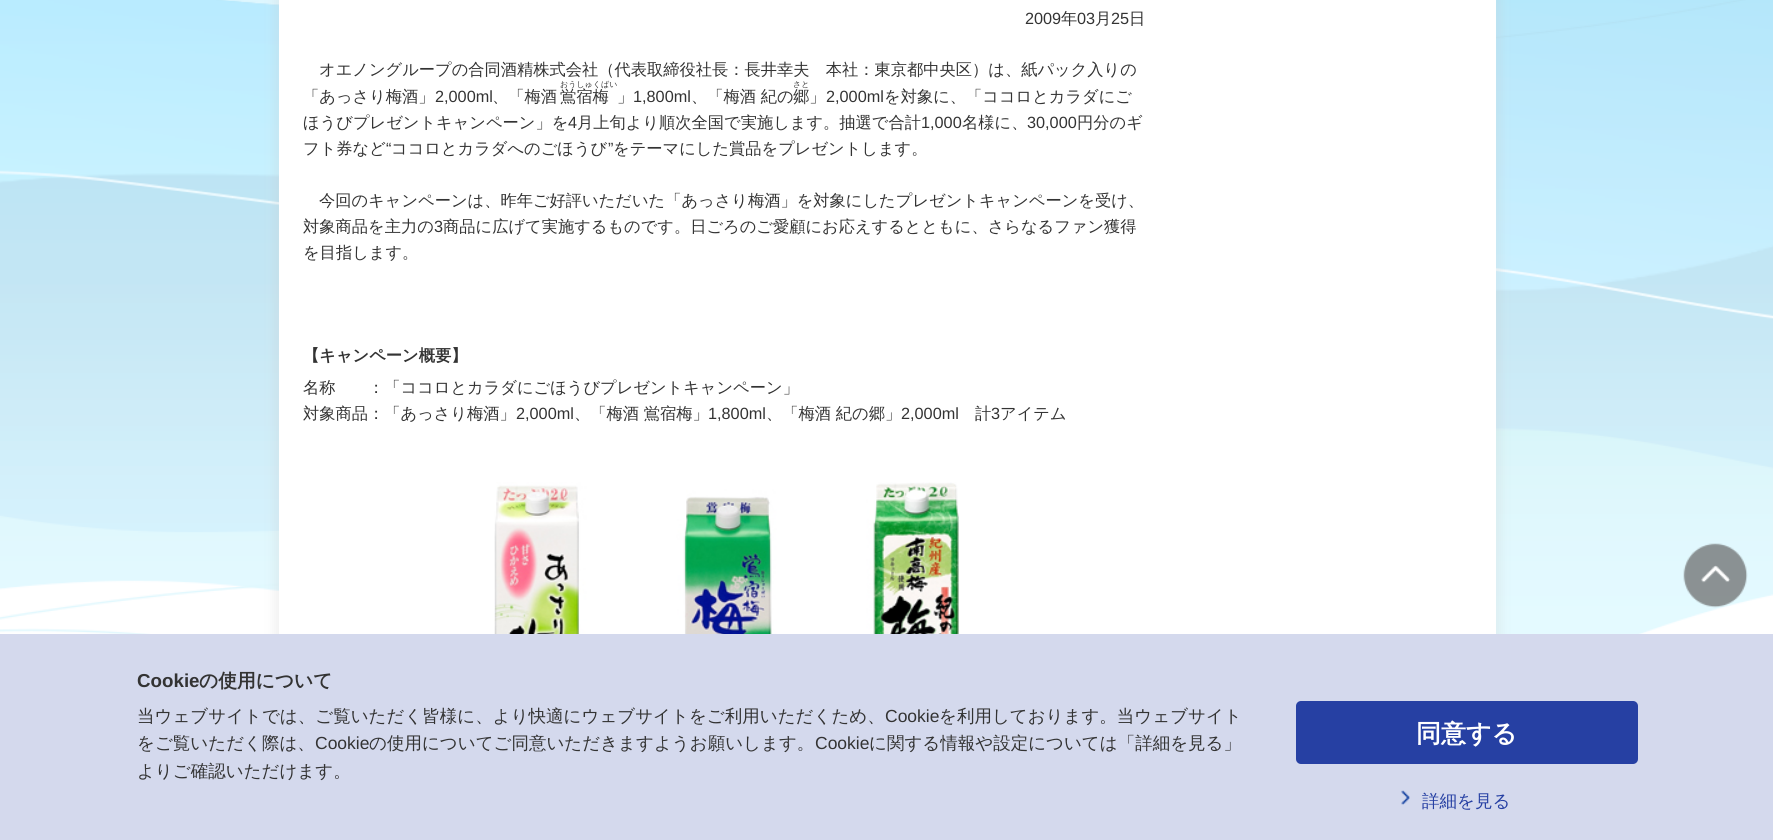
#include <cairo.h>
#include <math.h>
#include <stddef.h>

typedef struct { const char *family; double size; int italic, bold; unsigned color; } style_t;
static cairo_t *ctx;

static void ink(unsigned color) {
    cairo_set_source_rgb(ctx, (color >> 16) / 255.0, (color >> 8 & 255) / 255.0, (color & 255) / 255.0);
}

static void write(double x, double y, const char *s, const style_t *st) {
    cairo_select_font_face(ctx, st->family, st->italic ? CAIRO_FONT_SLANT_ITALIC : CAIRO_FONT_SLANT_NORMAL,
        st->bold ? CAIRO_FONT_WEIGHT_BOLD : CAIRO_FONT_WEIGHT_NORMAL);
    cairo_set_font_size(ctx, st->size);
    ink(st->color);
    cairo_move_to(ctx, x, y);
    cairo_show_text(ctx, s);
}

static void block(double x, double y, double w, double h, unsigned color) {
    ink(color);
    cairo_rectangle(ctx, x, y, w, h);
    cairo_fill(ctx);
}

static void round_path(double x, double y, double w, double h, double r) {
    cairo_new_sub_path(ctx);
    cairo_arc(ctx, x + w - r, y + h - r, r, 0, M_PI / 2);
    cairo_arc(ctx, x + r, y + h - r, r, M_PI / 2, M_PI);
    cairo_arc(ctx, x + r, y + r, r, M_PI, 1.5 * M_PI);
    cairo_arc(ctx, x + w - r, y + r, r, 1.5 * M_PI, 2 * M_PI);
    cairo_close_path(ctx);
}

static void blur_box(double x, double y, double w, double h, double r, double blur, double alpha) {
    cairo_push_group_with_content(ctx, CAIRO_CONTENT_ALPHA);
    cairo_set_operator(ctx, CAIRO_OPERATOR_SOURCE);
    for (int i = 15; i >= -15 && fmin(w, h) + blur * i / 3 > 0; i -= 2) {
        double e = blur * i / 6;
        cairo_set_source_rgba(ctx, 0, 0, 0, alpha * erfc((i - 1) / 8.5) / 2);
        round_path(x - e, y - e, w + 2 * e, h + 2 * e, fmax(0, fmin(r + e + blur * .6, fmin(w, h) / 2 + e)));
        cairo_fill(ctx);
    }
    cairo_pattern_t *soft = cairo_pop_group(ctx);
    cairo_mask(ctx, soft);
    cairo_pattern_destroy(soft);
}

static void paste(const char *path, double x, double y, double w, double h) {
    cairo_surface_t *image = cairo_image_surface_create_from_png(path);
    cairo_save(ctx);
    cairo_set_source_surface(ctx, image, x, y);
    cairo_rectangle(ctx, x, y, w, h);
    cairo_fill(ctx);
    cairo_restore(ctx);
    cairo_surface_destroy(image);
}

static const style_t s1 = {"Liberation Sans", 16.25, 0, 0, 0x333333};
static const style_t s2 = {"WenQuanYi Zen Hei Medium", 16.25, 0, 0, 0x333333};
static const style_t s3 = {"WenQuanYi Zen Hei Medium", 8, 0, 0, 0x333333};
static const style_t s4 = {"WenQuanYi Zen Hei", 16.25, 0, 1, 0x333333};
static const style_t s5 = {"Liberation Sans", 18.75, 0, 1, 0x333333};
static const style_t s6 = {"WenQuanYi Zen Hei", 18.75, 0, 1, 0x333333};
static const style_t s7 = {"WenQuanYi Zen Hei Medium", 17.5, 0, 0, 0x333333};
static const style_t s8 = {"Liberation Sans", 17.5, 0, 0, 0x333333};
static const style_t s9 = {"WenQuanYi Zen Hei", 25, 0, 1, 0xffffff};
static const style_t s10 = {"WenQuanYi Zen Hei Medium", 17.5, 0, 0, 0x2640a3};

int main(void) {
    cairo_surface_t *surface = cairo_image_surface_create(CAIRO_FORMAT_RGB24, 1773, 840);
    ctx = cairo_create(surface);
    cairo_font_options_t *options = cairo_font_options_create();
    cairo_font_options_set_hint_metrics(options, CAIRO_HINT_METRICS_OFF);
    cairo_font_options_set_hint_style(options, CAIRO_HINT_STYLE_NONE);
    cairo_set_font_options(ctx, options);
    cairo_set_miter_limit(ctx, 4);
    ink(0xffffff);
    cairo_paint(ctx);
    paste("pic1.png", 0, 0, 1773, 634);
    ink(0xcccccc);
    blur_box(275, -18, 1225, 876, 0, 6, 0.3);
    block(279, 0, 1217, 634, 0xffffff);
    write(1025, 24, "2009", &s1);
    write(1061, 24, "年", &s2);
    write(1077, 24, "03", &s1);
    write(1095, 24, "月", &s2);
    write(1111, 24, "25", &s1);
    write(1129, 24, "日", &s2);
    write(319, 75, "オエノングループの合同酒精株式会社（代表取締役社長：長井幸夫　本社：東京都中央区）は、紙パック入りの", &s2);
    write(303, 102, "「あっさり梅酒」", &s2);
    write(435, 102, "2,000ml", &s1);
    write(492, 102, "、「梅酒", &s2);
    write(560, 87, "おうしゅくばい", &s3);
    write(560, 102, "鴬宿梅", &s2);
    write(617, 102, "」", &s2);
    write(633, 102, "1,800ml", &s1);
    write(691, 102, "、「梅酒 紀の", &s2);
    write(793, 87, "さと", &s3);
    write(793, 102, "郷」", &s2);
    write(826, 102, "2,000ml", &s1);
    write(884, 102, "を対象に、「ココロとカラダにご", &s2);
    write(303, 128, "ほうびプレゼントキャンペーン」を", &s2);
    write(568, 128, "4", &s1);
    write(577, 128, "月上旬より順次全国で実施します。抽選で合計", &s2);
    write(921, 128, "1,000", &s1);
    write(962, 128, "名様に、", &s2);
    write(1027, 128, "30,000", &s1);
    write(1077, 128, "円分のギ", &s2);
    write(303, 154, "フト券など", &s2);
    write(386, 154, "“", &s1);
    write(391, 154, "ココロとカラダへのごほうび", &s2);
    write(608, 154, "”", &s1);
    write(613, 154, "をテーマにした賞品をプレゼントします。", &s2);
    write(319, 206, "今回のキャンペーンは、昨年ご好評いただいた「あっさり梅酒」を対象にしたプレゼントキャンペーンを受け、", &s2);
    write(303, 232, "対象商品を主力の", &s2);
    write(434, 232, "3", &s1);
    write(443, 232, "商品に広げて実施するものです。日ごろのご愛顧にお応えするとともに、さらなるファン獲得", &s2);
    write(303, 258, "を目指します。", &s2);
    write(303, 361, "【キャンペーン概要】", &s4);
    write(303, 393, "名称", &s2);
    write(368, 393, "：「ココロとカラダにごほうびプレゼントキャンペーン」", &s2);
    write(303, 419, "対象商品：「あっさり梅酒」", &s2);
    write(516, 419, "2,000ml", &s1);
    write(574, 419, "、「梅酒 鴬宿梅」", &s2);
    write(708, 419, "1,800ml", &s1);
    write(766, 419, "、「梅酒 紀の郷」", &s2);
    write(901, 419, "2,000ml", &s1);
    write(975, 419, "計", &s2);
    write(991, 419, "3", &s1);
    write(1000, 419, "アイテム", &s2);
    paste("pic2.png", 494, 482, 465, 152);
    paste("pic3.png", 1683, 543, 65, 65);
    block(0, 634, 1773, 206, 0xd4d9ed);
    write(137, 687, "Cookie", &s5);
    write(199, 687, "の使用について", &s6);
    write(137, 722, "当ウェブサイトでは、ご覧いただく皆様に、より快適にウェブサイトをご利用いただくため、", &s7);
    write(885, 722, "Cookie", &s8);
    write(939, 722, "を利用しております。当ウェブサイト", &s7);
    write(137, 749, "をご覧いただく際は、", &s7);
    write(315, 749, "Cookie", &s8);
    write(369, 749, "の使用についてご同意いただきますようお願いします。", &s7);
    write(815, 749, "Cookie", &s8);
    write(869, 749, "に関する情報や設定については「詳細を見る」", &s7);
    write(137, 777, "よりご確認いただけます。", &s7);
    ink(0x2640a3);
    round_path(1296, 701, 342, 63, 5);
    cairo_fill(ctx);
    write(1416, 742, "同意する", &s9);
    paste("pic4.png", 1401, 790, 9, 15);
    write(1422, 807, "詳細を見る", &s10);
    cairo_surface_write_to_png(surface, "screenshot.png");
    cairo_font_options_destroy(options);
    cairo_destroy(ctx);
    cairo_surface_destroy(surface);
    return 0;
}
